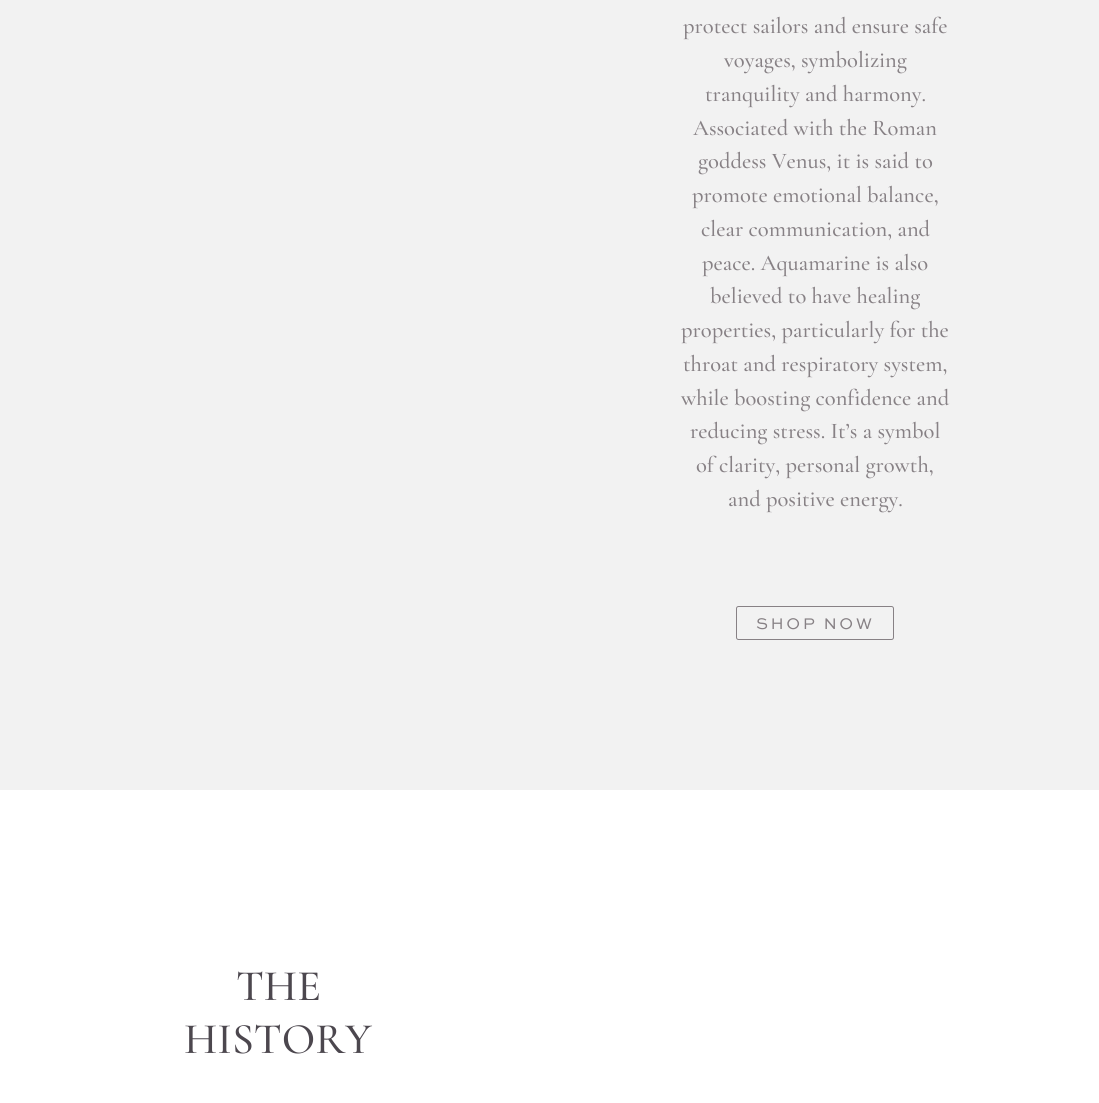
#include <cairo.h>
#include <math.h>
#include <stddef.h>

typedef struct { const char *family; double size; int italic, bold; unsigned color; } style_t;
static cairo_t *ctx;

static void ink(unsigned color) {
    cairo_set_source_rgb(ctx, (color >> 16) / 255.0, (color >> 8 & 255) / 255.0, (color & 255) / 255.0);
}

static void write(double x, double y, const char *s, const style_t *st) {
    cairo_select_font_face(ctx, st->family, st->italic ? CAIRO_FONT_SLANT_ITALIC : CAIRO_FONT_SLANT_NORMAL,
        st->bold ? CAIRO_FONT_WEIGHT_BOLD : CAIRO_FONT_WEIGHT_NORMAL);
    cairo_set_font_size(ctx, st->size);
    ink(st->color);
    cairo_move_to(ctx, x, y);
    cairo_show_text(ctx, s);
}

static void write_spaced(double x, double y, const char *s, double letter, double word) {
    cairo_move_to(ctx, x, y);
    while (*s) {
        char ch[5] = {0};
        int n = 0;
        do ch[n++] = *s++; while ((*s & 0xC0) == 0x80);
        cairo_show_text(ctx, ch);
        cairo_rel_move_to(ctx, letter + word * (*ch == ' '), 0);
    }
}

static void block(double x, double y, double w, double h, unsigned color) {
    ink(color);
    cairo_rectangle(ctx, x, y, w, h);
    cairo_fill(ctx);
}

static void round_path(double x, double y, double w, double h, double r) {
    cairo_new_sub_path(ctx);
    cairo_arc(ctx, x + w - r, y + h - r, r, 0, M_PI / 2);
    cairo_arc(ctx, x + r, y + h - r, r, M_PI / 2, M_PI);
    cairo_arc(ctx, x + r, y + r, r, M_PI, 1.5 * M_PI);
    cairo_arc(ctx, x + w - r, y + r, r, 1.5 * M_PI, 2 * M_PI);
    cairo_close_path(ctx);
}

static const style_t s1 = {"Cormorant Garamond Light", 22.5, 0, 0, 0x878185};
static const style_t s2 = {"Cormorant Garamond Light", 43.75, 0, 0, 0x4c474e};

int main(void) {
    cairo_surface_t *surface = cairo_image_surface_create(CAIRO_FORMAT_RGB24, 1099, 1103);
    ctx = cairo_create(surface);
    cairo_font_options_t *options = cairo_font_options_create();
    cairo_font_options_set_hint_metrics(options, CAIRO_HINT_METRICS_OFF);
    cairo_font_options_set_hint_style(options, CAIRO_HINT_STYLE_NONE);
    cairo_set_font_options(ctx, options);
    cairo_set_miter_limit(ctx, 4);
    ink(0xffffff);
    cairo_paint(ctx);
    block(0, 0, 1099, 790, 0xf2f2f2);
    write(683, 33, "protect sailors and ensure safe", &s1);
    write(724, 67, "voyages, symbolizing", &s1);
    write(705, 101, "tranquility and harmony.", &s1);
    write(693, 135, "Associated with the Roman", &s1);
    write(698, 168, "goddess Venus, it is said to", &s1);
    write(692, 202, "promote emotional balance,", &s1);
    write(701, 236, "clear communication, and", &s1);
    write(702, 270, "peace. Aquamarine is also", &s1);
    write(710, 303, "believed to have healing", &s1);
    write(681, 337, "properties, particularly for the", &s1);
    write(683, 371, "throat and respiratory system,", &s1);
    write(681, 405, "while boosting confidence and", &s1);
    write(690, 438, "reducing stress. It’s a symbol", &s1);
    write(696, 472, "of clarity, personal growth,", &s1);
    write(728, 506, "and positive energy.", &s1);
    round_path(736.5, 606.5, 157, 33, 2);
    cairo_set_line_width(ctx, 1);
    cairo_stroke(ctx);
    cairo_select_font_face(ctx, "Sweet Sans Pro", CAIRO_FONT_SLANT_NORMAL, CAIRO_FONT_WEIGHT_NORMAL);
    cairo_set_font_size(ctx, 16.25);
    write_spaced(756, 629, "SHOP NOW", 2.5, 0);
    write(236, 1000, "THE", &s2);
    write(184, 1053, "HISTORY", &s2);
    cairo_surface_write_to_png(surface, "screenshot.png");
    cairo_font_options_destroy(options);
    cairo_destroy(ctx);
    cairo_surface_destroy(surface);
    return 0;
}
